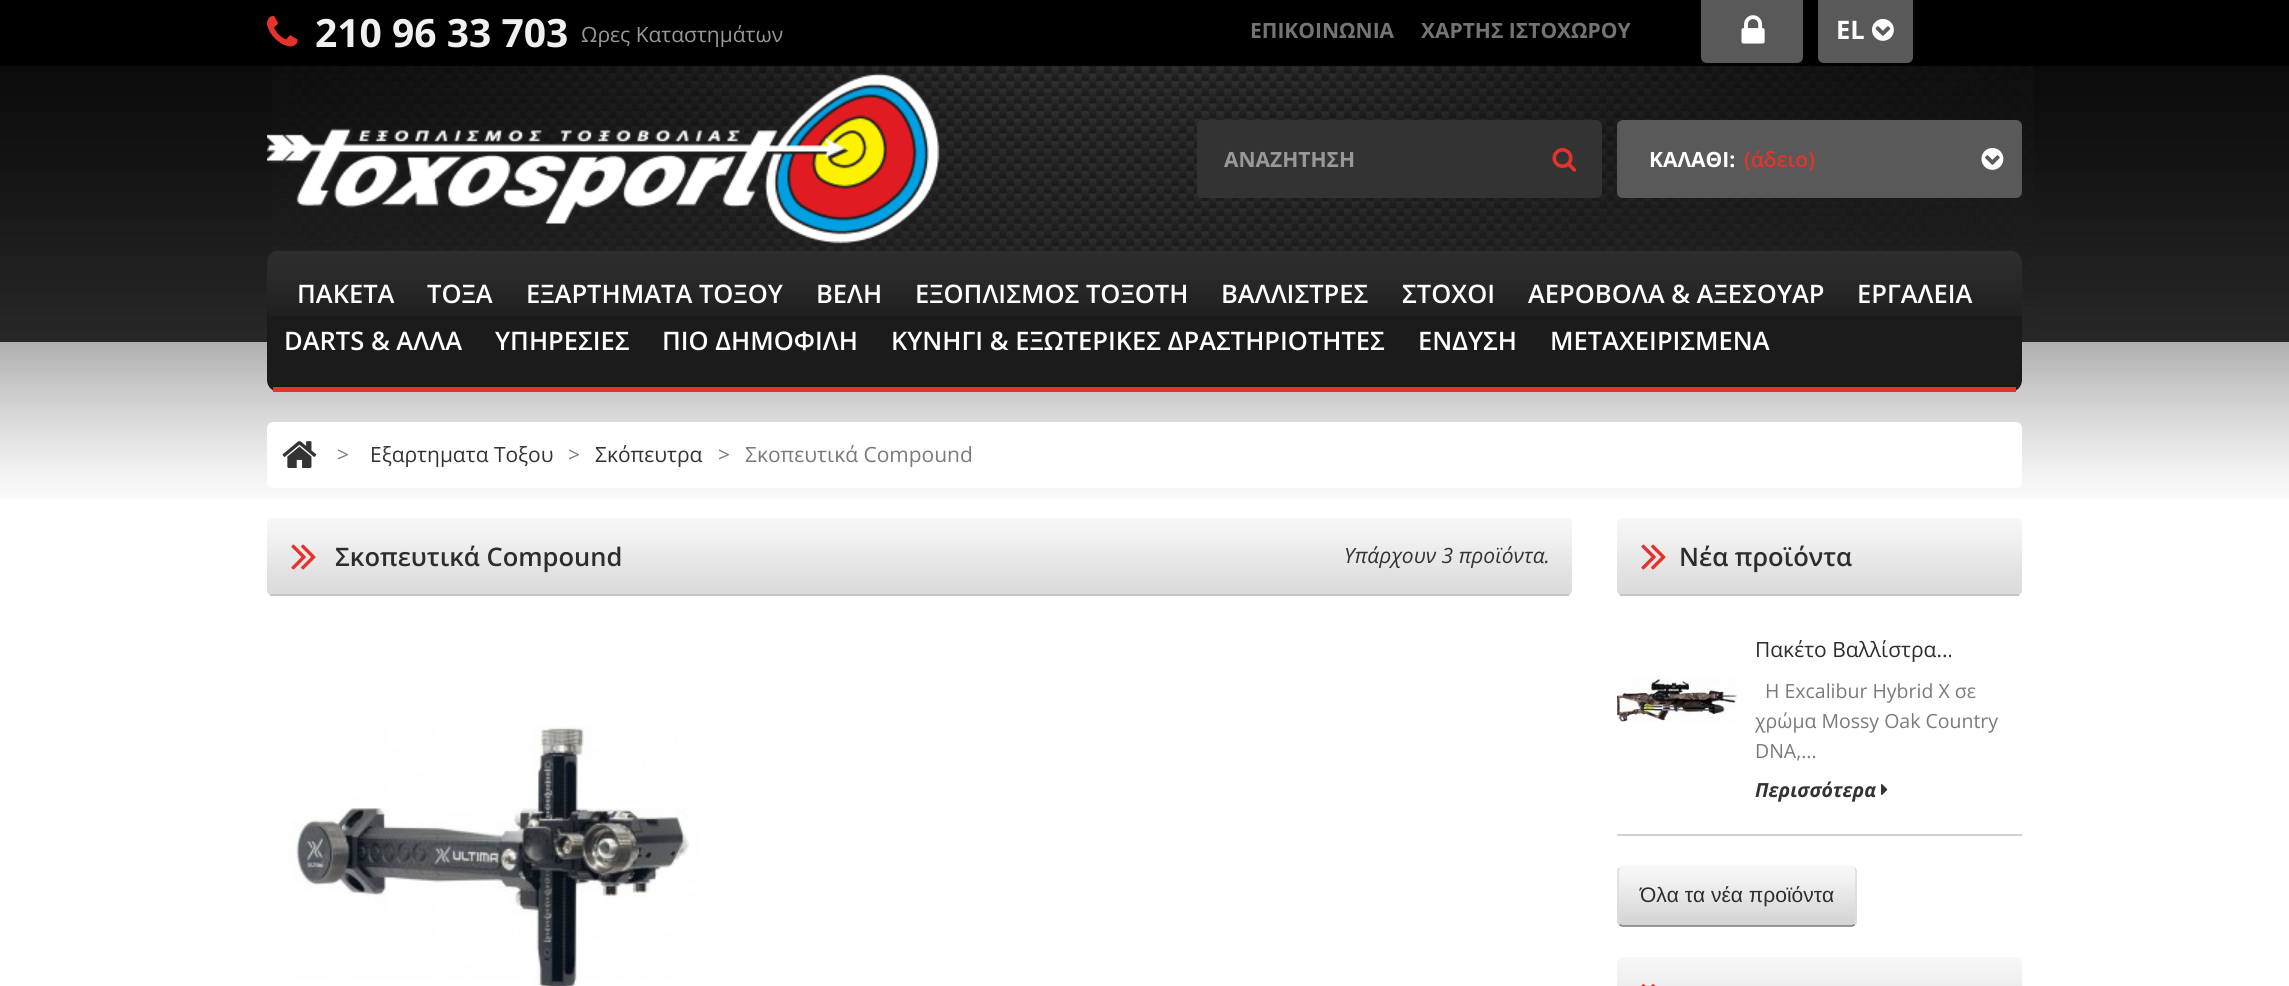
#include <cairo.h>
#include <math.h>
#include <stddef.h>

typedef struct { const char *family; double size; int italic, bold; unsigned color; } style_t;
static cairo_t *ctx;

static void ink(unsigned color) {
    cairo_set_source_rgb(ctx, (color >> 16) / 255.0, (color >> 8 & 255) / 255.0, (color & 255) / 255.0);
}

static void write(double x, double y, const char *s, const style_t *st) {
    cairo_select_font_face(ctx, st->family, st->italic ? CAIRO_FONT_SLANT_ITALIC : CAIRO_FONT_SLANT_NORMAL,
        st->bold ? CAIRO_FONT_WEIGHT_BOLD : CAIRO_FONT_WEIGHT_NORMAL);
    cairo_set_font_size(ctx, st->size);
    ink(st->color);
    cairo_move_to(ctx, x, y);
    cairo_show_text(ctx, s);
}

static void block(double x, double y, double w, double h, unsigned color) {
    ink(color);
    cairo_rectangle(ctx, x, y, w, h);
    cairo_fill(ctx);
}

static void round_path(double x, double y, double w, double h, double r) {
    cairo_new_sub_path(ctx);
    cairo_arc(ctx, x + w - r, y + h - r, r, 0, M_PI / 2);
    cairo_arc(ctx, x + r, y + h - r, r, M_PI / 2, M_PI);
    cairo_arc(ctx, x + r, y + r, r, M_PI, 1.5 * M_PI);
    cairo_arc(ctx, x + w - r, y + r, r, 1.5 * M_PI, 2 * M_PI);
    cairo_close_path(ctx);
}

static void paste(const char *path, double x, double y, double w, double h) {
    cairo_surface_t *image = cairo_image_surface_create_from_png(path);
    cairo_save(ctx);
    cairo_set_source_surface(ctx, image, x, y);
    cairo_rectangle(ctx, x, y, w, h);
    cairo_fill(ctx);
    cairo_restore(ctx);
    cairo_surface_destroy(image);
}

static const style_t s1 = {"Open Sans", 39, 0, 1, 0xf0f0f0};
static const style_t s2 = {"Open Sans", 21, 0, 0, 0x999999};
static const style_t s3 = {"Open Sans", 21, 0, 1, 0x747474};
static const style_t s4 = {"Open Sans", 25.5, 0, 1, 0xffffff};
static const style_t s5 = {"Open Sans", 21, 0, 1, 0x999999};
static const style_t s6 = {"Open Sans", 21, 0, 1, 0xffffff};
static const style_t s7 = {"Open Sans SemiBold", 21, 0, 0, 0xe5322c};
static const style_t s8 = {"Open Sans SemiBold", 25.5, 0, 0, 0xffffff};
static const style_t s9 = {"Open Sans", 21, 0, 0, 0x7a7a7a};
static const style_t s10 = {"Open Sans", 21, 0, 0, 0x333333};
static const style_t s11 = {"Open Sans SemiBold", 25.5, 0, 0, 0x2d2d2d};
static const style_t s12 = {"Open Sans", 21, 1, 0, 0x333333};
static const style_t s13 = {"Open Sans", 21, 0, 0, 0x2d2d2d};
static const style_t s14 = {"Open Sans", 19.5, 0, 0, 0x7a7a7a};
static const style_t s15 = {"Open Sans", 19.5, 1, 1, 0x333333};
static const style_t s16 = {"Liberation Sans", 21, 0, 0, 0x2d2d2d};

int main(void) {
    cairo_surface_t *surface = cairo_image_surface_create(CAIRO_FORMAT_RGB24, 2289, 986);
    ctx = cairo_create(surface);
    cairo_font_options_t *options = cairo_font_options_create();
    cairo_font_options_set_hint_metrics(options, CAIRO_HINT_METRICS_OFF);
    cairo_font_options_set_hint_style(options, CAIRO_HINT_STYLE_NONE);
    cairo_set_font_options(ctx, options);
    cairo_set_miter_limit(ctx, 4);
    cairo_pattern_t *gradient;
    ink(0xffffff);
    cairo_paint(ctx);
    paste("pic1.png", 0, 0, 2289, 342);
    paste("pic2.png", 272, 65, 1762, 277);
    paste("pic3.png", 267, 15, 31, 32);
    write(315, 47, "210 96 33 703", &s1);
    write(581, 42, "Ωρες Καταστημάτων", &s2);
    write(1250, 38, "ΕΠΙΚΟΙΝΩΝΙΑ", &s3);
    write(1421, 38, "ΧΑΡΤΗΣ ΙΣΤΟΧΩΡΟΥ", &s3);
    ink(0x595959);
    cairo_new_path(ctx);
    cairo_move_to(ctx, 1701, 0);
    cairo_line_to(ctx, 1803, 0);
    cairo_line_to(ctx, 1803, 57);
    cairo_curve_to(ctx, 1803, 60.5, 1800.5, 63, 1797, 63);
    cairo_line_to(ctx, 1707, 63);
    cairo_curve_to(ctx, 1703.5, 63, 1701, 60.5, 1701, 57);
    cairo_close_path(ctx);
    cairo_fill(ctx);
    paste("pic4.png", 1741, 15, 24, 29);
    cairo_new_path(ctx);
    cairo_move_to(ctx, 1818, 0);
    cairo_line_to(ctx, 1913, 0);
    cairo_line_to(ctx, 1913, 57);
    cairo_curve_to(ctx, 1913, 60.5, 1910.5, 63, 1907, 63);
    cairo_line_to(ctx, 1824, 63);
    cairo_curve_to(ctx, 1820.5, 63, 1818, 60.5, 1818, 57);
    cairo_close_path(ctx);
    cairo_fill(ctx);
    write(1836, 39, "EL", &s4);
    paste("pic5.png", 1872, 19, 22, 22);
    paste("pic6.png", 267, 72, 674, 173);
    ink(0x333333);
    round_path(1197, 120, 405, 78, 6);
    cairo_fill(ctx);
    cairo_new_path(ctx);
    cairo_move_to(ctx, 1203, 120);
    cairo_line_to(ctx, 1527, 120);
    cairo_line_to(ctx, 1527, 198);
    cairo_line_to(ctx, 1203, 198);
    cairo_curve_to(ctx, 1199.5, 198, 1197, 195.5, 1197, 192);
    cairo_line_to(ctx, 1197, 126);
    cairo_curve_to(ctx, 1197, 122.5, 1199.5, 120, 1203, 120);
    cairo_close_path(ctx);
    cairo_fill(ctx);
    write(1224, 167, "ΑΝΑΖΗΤΗΣΗ", &s5);
    paste("pic7.png", 1552, 148, 25, 24);
    ink(0x595959);
    round_path(1617, 120, 405, 78, 6);
    cairo_fill(ctx);
    write(1649, 167, "ΚΑΛΑΘΙ:", &s6);
    write(1744, 167, "(άδειο)", &s7);
    paste("pic8.png", 1981, 148, 23, 22);
    paste("pic10.png", 0, 342, 2289, 157);
    ink(0x1b1b1b);
    round_path(267, 251, 1755, 141, 12);
    cairo_fill(ctx);
    paste("pic9.png", 267, 250, 1755, 66);
    block(273, 387, 1743, 5, 0xe5322c);
    write(297, 303, "ΠΑΚΕΤΑ", &s8);
    write(427, 303, "ΤΟΞΑ", &s8);
    write(526, 303, "ΕΞΑΡΤΗΜΑΤΑ ΤΟΞΟΥ", &s8);
    write(816, 303, "ΒΕΛΗ", &s8);
    write(915, 303, "ΕΞΟΠΛΙΣΜΟΣ ΤΟΞΟΤΗ", &s8);
    write(1221, 303, "ΒΑΛΛΙΣΤΡΕΣ", &s8);
    write(1402, 303, "ΣΤΟΧΟΙ", &s8);
    write(1528, 303, "ΑΕΡΟΒΟΛΑ & ΑΞΕΣΟΥΑΡ", &s8);
    write(1857, 303, "ΕΡΓΑΛΕΙΑ", &s8);
    write(284, 350, "DARTS & ΑΛΛΑ", &s8);
    write(495, 350, "ΥΠΗΡΕΣΙΕΣ", &s8);
    write(662, 350, "ΠΙΟ ΔΗΜΟΦΙΛΗ", &s8);
    write(891, 350, "ΚΥΝΗΓΙ & ΕΞΩΤΕΡΙΚΕΣ ΔΡΑΣΤΗΡΙΟΤΗΤΕΣ", &s8);
    write(1418, 350, "ΕΝΔΥΣΗ", &s8);
    write(1550, 350, "ΜΕΤΑΧΕΙΡΙΣΜΕΝΑ", &s8);
    round_path(267, 422, 1755, 66, 6);
    cairo_fill(ctx);
    paste("pic11.png", 282, 441, 35, 27);
    write(337, 462, ">", &s9);
    write(370, 462, "Εξαρτηματα Τοξου", &s10);
    write(568, 462, ">", &s9);
    write(595, 462, "Σκόπευτρα", &s10);
    write(718, 462, ">", &s9);
    write(745, 462, "Σκοπευτικά Compound", &s9);
    ink(0xdcdcdc);
    round_path(267, 518, 1305, 78, 6);
    cairo_fill(ctx);
    paste("pic12.png", 267, 518, 1305, 74);
    block(270, 594, 1299, 2, 0xc5c5c5);
    paste("pic13.png", 291, 544, 25, 26);
    write(335, 566, "Σκοπευτικά Compound", &s11);
    write(1344, 563, "Υπάρχουν 3 προϊόντα.", &s12);
    paste("pic14.png", 291, 725, 408, 261);
    ink(0xdcdcdc);
    round_path(1617, 518, 405, 78, 6);
    cairo_fill(ctx);
    paste("pic15.png", 1617, 518, 405, 74);
    block(1620, 594, 399, 2, 0xc5c5c5);
    paste("pic13.png", 1641, 544, 25, 26);
    write(1679, 566, "Νέα προϊόντα", &s11);
    block(1617, 834, 405, 2, 0xd1d1d1);
    paste("pic16.png", 1617, 675, 120, 47);
    write(1755, 657, "Πακέτο Βαλλίστρα...", &s13);
    write(1765, 698, "Η Excalibur Hybrid X σε", &s14);
    write(1755, 728, "χρώμα Mossy Oak Country", &s14);
    write(1755, 758, "DNA,...", &s14);
    write(1755, 797, "Περισσότερα", &s15);
    paste("pic17.png", 1881, 784, 7, 12);
    cairo_save(ctx);
    round_path(1617, 866, 240, 61, 6);
    cairo_clip(ctx);
    gradient = cairo_pattern_create_linear(1737, 867, 1737, 926);
    cairo_pattern_add_color_stop_rgba(gradient, 0, 0.969, 0.969, 0.969, 1);
    cairo_pattern_add_color_stop_rgba(gradient, 0.18, 0.953, 0.953, 0.953, 1);
    cairo_pattern_add_color_stop_rgba(gradient, 0.88, 0.843, 0.843, 0.843, 1);
    cairo_pattern_add_color_stop_rgba(gradient, 1, 0.831, 0.831, 0.831, 1);
    cairo_set_source(ctx, gradient);
    cairo_pattern_destroy(gradient);
    cairo_rectangle(ctx, 1617, 867, 240, 59);
    cairo_fill(ctx);
    gradient = cairo_pattern_create_linear(1737, 926, 1737, 984);
    cairo_pattern_add_color_stop_rgba(gradient, 0, 0.969, 0.969, 0.969, 1);
    cairo_pattern_add_color_stop_rgba(gradient, 0.18, 0.953, 0.953, 0.953, 1);
    cairo_pattern_add_color_stop_rgba(gradient, 0.88, 0.843, 0.843, 0.843, 1);
    cairo_pattern_add_color_stop_rgba(gradient, 1, 0.831, 0.831, 0.831, 1);
    cairo_set_source(ctx, gradient);
    cairo_pattern_destroy(gradient);
    cairo_rectangle(ctx, 1617, 926, 240, 1);
    cairo_fill(ctx);
    cairo_restore(ctx);
    cairo_new_path(ctx);
    cairo_move_to(ctx, 1619.5, 868);
    cairo_curve_to(ctx, 1620.5, 867, 1621.5, 866, 1623, 866);
    cairo_line_to(ctx, 1851, 866);
    cairo_curve_to(ctx, 1852.5, 866, 1853.5, 867, 1854.5, 868);
    ink(0xf7f7f7);
    cairo_set_line_width(ctx, 1.5);
    cairo_stroke(ctx);
    cairo_new_path(ctx);
    cairo_move_to(ctx, 1854.5, 868);
    cairo_curve_to(ctx, 1855.5, 869, 1856, 870, 1856, 871.5);
    cairo_line_to(ctx, 1856, 921);
    cairo_curve_to(ctx, 1856, 922.5, 1855.5, 923.5, 1854.5, 924.5);
    ink(0xdcdcdc);
    cairo_stroke(ctx);
    cairo_new_path(ctx);
    cairo_move_to(ctx, 1854.5, 924.5);
    cairo_curve_to(ctx, 1853.5, 925.5, 1852.5, 926, 1851, 926);
    cairo_line_to(ctx, 1623, 926);
    cairo_curve_to(ctx, 1621.5, 926, 1620.5, 925.5, 1619.5, 924.5);
    ink(0x7a7a7a);
    cairo_stroke(ctx);
    cairo_new_path(ctx);
    cairo_move_to(ctx, 1619.5, 924.5);
    cairo_curve_to(ctx, 1618.5, 923.5, 1618, 922.5, 1618, 921);
    cairo_line_to(ctx, 1618, 871.5);
    cairo_curve_to(ctx, 1618, 870, 1618.5, 869, 1619.5, 868);
    ink(0xdcdcdc);
    cairo_stroke(ctx);
    write(1640, 902, "Όλα τα νέα προϊόντα", &s16);
    paste("pic18.png", 1617, 957, 405, 29);
    paste("pic19.png", 1641, 984, 15, 2);
    cairo_surface_write_to_png(surface, "screenshot.png");
    cairo_font_options_destroy(options);
    cairo_destroy(ctx);
    cairo_surface_destroy(surface);
    return 0;
}
